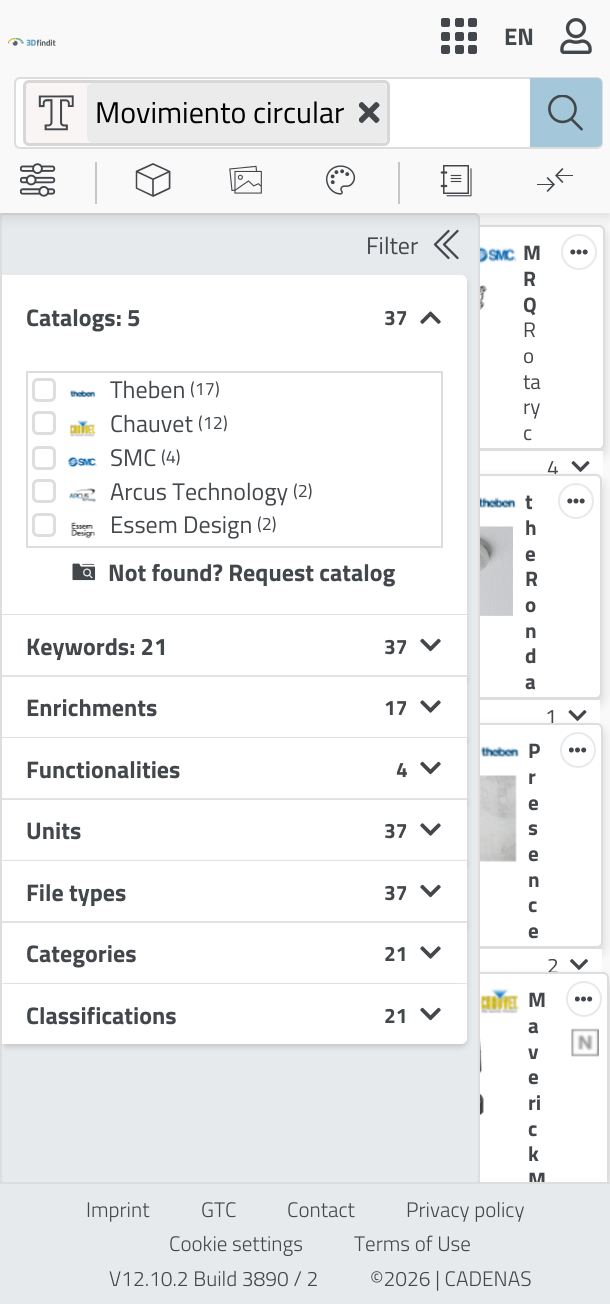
#include <cairo.h>
#include <math.h>
#include <stddef.h>

typedef struct { const char *family; double size; int italic, bold; unsigned color; } style_t;
static cairo_t *ctx;

static void ink(unsigned color) {
    cairo_set_source_rgb(ctx, (color >> 16) / 255.0, (color >> 8 & 255) / 255.0, (color & 255) / 255.0);
}

static void write(double x, double y, const char *s, const style_t *st) {
    cairo_select_font_face(ctx, st->family, st->italic ? CAIRO_FONT_SLANT_ITALIC : CAIRO_FONT_SLANT_NORMAL,
        st->bold ? CAIRO_FONT_WEIGHT_BOLD : CAIRO_FONT_WEIGHT_NORMAL);
    cairo_set_font_size(ctx, st->size);
    ink(st->color);
    cairo_move_to(ctx, x, y);
    cairo_show_text(ctx, s);
}

static void block(double x, double y, double w, double h, unsigned color) {
    ink(color);
    cairo_rectangle(ctx, x, y, w, h);
    cairo_fill(ctx);
}

static void round_path(double x, double y, double w, double h, double r) {
    cairo_new_sub_path(ctx);
    cairo_arc(ctx, x + w - r, y + h - r, r, 0, M_PI / 2);
    cairo_arc(ctx, x + r, y + h - r, r, M_PI / 2, M_PI);
    cairo_arc(ctx, x + r, y + r, r, M_PI, 1.5 * M_PI);
    cairo_arc(ctx, x + w - r, y + r, r, 1.5 * M_PI, 2 * M_PI);
    cairo_close_path(ctx);
}

static void blur_box(double x, double y, double w, double h, double r, double blur, double alpha) {
    cairo_push_group_with_content(ctx, CAIRO_CONTENT_ALPHA);
    cairo_set_operator(ctx, CAIRO_OPERATOR_SOURCE);
    for (int i = 15; i >= -15 && fmin(w, h) + blur * i / 3 > 0; i -= 2) {
        double e = blur * i / 6;
        cairo_set_source_rgba(ctx, 0, 0, 0, alpha * erfc((i - 1) / 8.5) / 2);
        round_path(x - e, y - e, w + 2 * e, h + 2 * e, fmax(0, fmin(r + e + blur * .6, fmin(w, h) / 2 + e)));
        cairo_fill(ctx);
    }
    cairo_pattern_t *soft = cairo_pop_group(ctx);
    cairo_mask(ctx, soft);
    cairo_pattern_destroy(soft);
}

static void paste(const char *path, double x, double y, double w, double h) {
    cairo_surface_t *image = cairo_image_surface_create_from_png(path);
    cairo_save(ctx);
    cairo_set_source_surface(ctx, image, x, y);
    cairo_rectangle(ctx, x, y, w, h);
    cairo_fill(ctx);
    cairo_restore(ctx);
    cairo_surface_destroy(image);
}

static const style_t s1 = {"Titillium Web", 21, 0, 0, 0x43474b};
static const style_t s2 = {"Titillium Web Light", 21, 0, 0, 0x43474b};
static const style_t s3 = {"Titillium Web", 24, 0, 1, 0x43474b};
static const style_t s4 = {"Titillium Web", 30, 0, 0, 0x000000};
static const style_t s5 = {"Titillium Web", 24, 0, 0, 0x43474b};
static const style_t s6 = {"Titillium Web", 21, 0, 1, 0x43474b};
static const style_t s7 = {"Titillium Web", 18, 0, 0, 0x43474b};

int main(void) {
    cairo_surface_t *surface = cairo_image_surface_create(CAIRO_FORMAT_RGB24, 610, 1304);
    ctx = cairo_create(surface);
    cairo_font_options_t *options = cairo_font_options_create();
    cairo_font_options_set_hint_metrics(options, CAIRO_HINT_METRICS_OFF);
    cairo_font_options_set_hint_style(options, CAIRO_HINT_STYLE_NONE);
    cairo_set_font_options(ctx, options);
    cairo_set_miter_limit(ctx, 4);
    ink(0xe7eaec);
    cairo_paint(ctx);
    block(474, 213, 136, 969, 0xf9f9f9);
    ink(0x000000);
    blur_box(348, 231, 257, 225, 6, 6, 0.15);
    ink(0xffffff);
    round_path(349, 226, 255, 223, 5);
    cairo_fill_preserve(ctx);
    ink(0xdddddd);
    cairo_stroke(ctx);
    block(480, 451, 123, 37, 0xffffff);
    paste("pic26.png", 571, 461, 19, 11);
    ink(0x000000);
    blur_box(350, 480, 252, 225, 6, 6, 0.15);
    write(547, 475, "4", &s1);
    ink(0xffffff);
    round_path(351, 475, 250, 223, 5);
    cairo_fill_preserve(ctx);
    ink(0xdddddd);
    cairo_stroke(ctx);
    block(480, 700, 120, 24, 0xffffff);
    paste("pic26.png", 568, 710, 19, 11);
    ink(0x000000);
    blur_box(353, 729, 250, 225, 6, 6, 0.15);
    write(545, 724, "1", &s1);
    ink(0xffffff);
    round_path(354, 724, 248, 223, 5);
    cairo_fill_preserve(ctx);
    ink(0xdddddd);
    cairo_stroke(ctx);
    block(480, 949, 122, 23, 0xffffff);
    paste("pic32.png", 570, 959, 18, 11);
    block(0, 1182, 610, 2, 0xdddddd);
    cairo_save(ctx);
    cairo_rectangle(ctx, 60, 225, 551, 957);
    cairo_clip(ctx);
    ink(0x000000);
    blur_box(353, 978, 256, 225, 6, 6, 0.15);
    cairo_restore(ctx);
    write(547, 973, "2", &s1);
    ink(0xffffff);
    cairo_new_path(ctx);
    cairo_move_to(ctx, 359, 972);
    cairo_line_to(ctx, 603, 972);
    cairo_curve_to(ctx, 606.5, 972, 609, 974.5, 609, 978);
    cairo_line_to(ctx, 609, 1182);
    cairo_line_to(ctx, 353, 1182);
    cairo_line_to(ctx, 353, 978);
    cairo_curve_to(ctx, 353, 974.5, 355.5, 972, 359, 972);
    cairo_close_path(ctx);
    cairo_fill(ctx);
    cairo_save(ctx);
    cairo_rectangle(ctx, 60, 225, 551, 957);
    cairo_clip(ctx);
    round_path(354, 973, 254, 223, 5);
    ink(0xdddddd);
    cairo_stroke(ctx);
    cairo_restore(ctx);
    ink(0xe7eaec);
    cairo_new_path(ctx);
    cairo_move_to(ctx, 0, 213);
    cairo_line_to(ctx, 474, 213);
    cairo_curve_to(ctx, 477.5, 213, 480, 215.5, 480, 219);
    cairo_line_to(ctx, 480, 1182);
    cairo_line_to(ctx, 0, 1182);
    cairo_close_path(ctx);
    cairo_fill(ctx);
    write(406, 1217, "Privacy policy", &s2);
    write(370, 1286, "©2026 | CADENAS", &s2);
    cairo_save(ctx);
    cairo_rectangle(ctx, 0, 213, 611, 969);
    cairo_clip(ctx);
    cairo_new_path(ctx);
    cairo_move_to(ctx, 1, 214);
    cairo_line_to(ctx, 474, 214);
    cairo_curve_to(ctx, 477, 214, 479, 216, 479, 219);
    cairo_line_to(ctx, 479, 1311);
    cairo_line_to(ctx, 1, 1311);
    cairo_close_path(ctx);
    ink(0xdddddd);
    cairo_stroke(ctx);
    cairo_restore(ctx);
    paste("pic13.png", 433, 229, 26, 31);
    cairo_arc(ctx, 579, 252, 17, 0, 2 * M_PI);
    ink(0xe7eaec);
    cairo_stroke(ctx);
    ink(0x000000);
    blur_box(0, 5, 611, 213, 0, 6, 0.1);
    block(0, 0, 610, 213, 0xf9f9f9);
    paste("pic1.png", 8, 38, 48, 8);
    paste("pic2.png", 441, 18, 36, 36);
    write(504, 45, "EN", &s3);
    paste("pic3.png", 560, 18, 32, 36);
    ink(0xffffff);
    round_path(15, 78, 587, 70, 5);
    cairo_fill_preserve(ctx);
    ink(0xdddddd);
    cairo_stroke(ctx);
    ink(0xf9f5f5);
    round_path(24.5, 81.5, 364, 63, 4.5);
    cairo_fill_preserve(ctx);
    ink(0xd7d7d7);
    cairo_set_line_width(ctx, 3);
    cairo_stroke(ctx);
    paste("pic4.png", 38, 95, 36, 36);
    ink(0xebebeb);
    round_path(87, 83, 300, 60, 6);
    cairo_fill(ctx);
    write(95, 123, "Movimiento circular", &s4);
    paste("pic5.png", 359, 102, 21, 21);
    ink(0xa4c8d9);
    cairo_new_path(ctx);
    cairo_move_to(ctx, 530, 78);
    cairo_line_to(ctx, 597, 78);
    cairo_curve_to(ctx, 600, 78, 602, 80, 602, 83);
    cairo_line_to(ctx, 602, 142);
    cairo_curve_to(ctx, 602, 145, 600, 147, 597, 147);
    cairo_line_to(ctx, 530, 147);
    cairo_close_path(ctx);
    cairo_fill(ctx);
    paste("pic6.png", 548, 95, 35, 36);
    paste("pic7.png", 20, 163, 36, 34);
    block(95, 162, 2, 42, 0xc6c6c6);
    paste("pic8.png", 135, 163, 36, 34);
    paste("pic9.png", 229, 165, 33, 29);
    paste("pic10.png", 325, 165, 31, 30);
    block(398, 162, 2, 42, 0xc6c6c6);
    paste("pic11.png", 440, 165, 32, 32);
    paste("pic12.png", 537, 168, 36, 24);
    write(366, 254, "Filter", &s5);
    cairo_save(ctx);
    cairo_rectangle(ctx, 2, 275, 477, 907);
    cairo_clip(ctx);
    ink(0x000000);
    blur_box(2, 278, 465, 340, 6, 3, 0.15);
    cairo_restore(ctx);
    ink(0xffffff);
    cairo_new_path(ctx);
    cairo_move_to(ctx, 2, 275);
    cairo_line_to(ctx, 461, 275);
    cairo_curve_to(ctx, 464.5, 275, 467, 277.5, 467, 281);
    cairo_line_to(ctx, 467, 615);
    cairo_line_to(ctx, 2, 615);
    cairo_close_path(ctx);
    cairo_fill(ctx);
    cairo_set_source_rgba(ctx, 0, 0, 0, 0.1);
    cairo_rectangle(ctx, 2, 614, 465, 1);
    cairo_fill(ctx);
    write(26, 326, "Catalogs: 5", &s3);
    write(384, 325, "37", &s6);
    paste("pic14.png", 420, 311, 21, 13);
    cairo_rectangle(ctx, 27, 372, 415, 175);
    ink(0xdddddd);
    cairo_set_line_width(ctx, 2);
    cairo_stroke(ctx);
    round_path(33.5, 379.5, 21, 21, 4.5);
    cairo_set_line_width(ctx, 3);
    cairo_stroke(ctx);
    paste("pic15.png", 70, 390, 26, 8);
    write(110, 398, "Theben", &s5);
    write(190, 395, "(17)", &s7);
    round_path(33.5, 412.5, 21, 21, 4.5);
    ink(0xdddddd);
    cairo_stroke(ctx);
    paste("pic16.png", 69, 420, 27, 17);
    write(110, 432, "Chauvet", &s5);
    write(198, 429, "(12)", &s7);
    round_path(33.5, 447.5, 21, 21, 4.5);
    ink(0xdddddd);
    cairo_stroke(ctx);
    paste("pic17.png", 67, 457, 31, 10);
    write(110, 466, "SMC", &s5);
    write(161, 463, "(4)", &s7);
    round_path(33.5, 480.5, 21, 21, 4.5);
    ink(0xdddddd);
    cairo_stroke(ctx);
    paste("pic18.png", 69, 488, 27, 14);
    write(110, 500, "Arcus Technology", &s5);
    write(293, 497, "(2)", &s7);
    round_path(33.5, 514.5, 21, 21, 4.5);
    ink(0xdddddd);
    cairo_stroke(ctx);
    paste("pic19.png", 71, 522, 24, 16);
    write(110, 533, "Essem Design", &s5);
    write(257, 530, "(2)", &s7);
    paste("pic20.png", 72, 563, 24, 18);
    write(108, 581, "Not found? Request catalog", &s3);
    cairo_save(ctx);
    cairo_rectangle(ctx, 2, 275, 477, 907);
    cairo_clip(ctx);
    ink(0x000000);
    blur_box(2, 618, 465, 62, 0, 3, 0.15);
    cairo_restore(ctx);
    block(2, 615, 465, 60, 0xffffff);
    block(2, 675, 465, 2, 0xe6e6e6);
    write(26, 655, "Keywords: 21", &s3);
    write(384, 654, "37", &s6);
    paste("pic21.png", 420, 638, 21, 14);
    cairo_save(ctx);
    cairo_rectangle(ctx, 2, 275, 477, 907);
    cairo_clip(ctx);
    ink(0x000000);
    blur_box(2, 680, 465, 61, 0, 3, 0.15);
    cairo_restore(ctx);
    block(2, 677, 465, 61, 0xffffff);
    cairo_set_source_rgba(ctx, 0, 0, 0, 0.1);
    cairo_rectangle(ctx, 2, 737, 465, 1);
    cairo_fill(ctx);
    write(26, 716, "Enrichments", &s3);
    write(384, 715, "17", &s6);
    paste("pic22.png", 420, 700, 21, 13);
    cairo_save(ctx);
    cairo_rectangle(ctx, 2, 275, 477, 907);
    cairo_clip(ctx);
    ink(0x000000);
    blur_box(2, 741, 465, 62, 0, 3, 0.15);
    cairo_restore(ctx);
    block(2, 738, 465, 60, 0xffffff);
    block(2, 798, 465, 2, 0xe6e6e6);
    write(26, 778, "Functionalities", &s3);
    write(396, 777, "4", &s6);
    paste("pic21.png", 420, 761, 21, 14);
    cairo_save(ctx);
    cairo_rectangle(ctx, 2, 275, 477, 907);
    cairo_clip(ctx);
    ink(0x000000);
    blur_box(2, 803, 465, 61, 0, 3, 0.15);
    cairo_restore(ctx);
    block(2, 800, 465, 61, 0xffffff);
    cairo_set_source_rgba(ctx, 0, 0, 0, 0.1);
    cairo_rectangle(ctx, 2, 860, 465, 1);
    cairo_fill(ctx);
    write(26, 839, "Units", &s3);
    write(384, 838, "37", &s6);
    paste("pic22.png", 420, 823, 21, 13);
    cairo_save(ctx);
    cairo_rectangle(ctx, 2, 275, 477, 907);
    cairo_clip(ctx);
    ink(0x000000);
    blur_box(2, 864, 465, 62, 0, 3, 0.15);
    cairo_restore(ctx);
    block(2, 861, 465, 60, 0xffffff);
    block(2, 921, 465, 2, 0xe6e6e6);
    write(26, 901, "File types", &s3);
    write(384, 900, "37", &s6);
    paste("pic21.png", 420, 884, 21, 14);
    cairo_save(ctx);
    cairo_rectangle(ctx, 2, 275, 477, 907);
    cairo_clip(ctx);
    ink(0x000000);
    blur_box(2, 926, 465, 61, 0, 3, 0.15);
    cairo_restore(ctx);
    block(2, 923, 465, 61, 0xffffff);
    cairo_set_source_rgba(ctx, 0, 0, 0, 0.1);
    cairo_rectangle(ctx, 2, 983, 465, 1);
    cairo_fill(ctx);
    write(26, 962, "Categories", &s3);
    write(384, 961, "21", &s6);
    paste("pic22.png", 420, 946, 21, 13);
    cairo_save(ctx);
    cairo_rectangle(ctx, 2, 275, 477, 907);
    cairo_clip(ctx);
    ink(0x000000);
    blur_box(2, 987, 465, 60, 6, 3, 0.15);
    cairo_restore(ctx);
    ink(0xffffff);
    cairo_new_path(ctx);
    cairo_move_to(ctx, 2, 984);
    cairo_line_to(ctx, 467, 984);
    cairo_line_to(ctx, 467, 1038);
    cairo_curve_to(ctx, 467, 1041.5, 464.5, 1044, 461, 1044);
    cairo_line_to(ctx, 2, 1044);
    cairo_close_path(ctx);
    cairo_fill(ctx);
    write(26, 1024, "Classifications", &s3);
    write(384, 1023, "21", &s6);
    paste("pic21.png", 420, 1007, 21, 14);
    paste("pic23.png", 480, 246, 37, 18);
    paste("pic24.png", 480, 279, 7, 88);
    write(523, 260, "M", &s6);
    write(523, 286, "R", &s6);
    write(523, 312, "Q", &s6);
    write(523, 337, "R", &s1);
    write(523, 363, "o", &s1);
    write(523, 389, "ta", &s1);
    write(523, 414, "ry", &s1);
    write(523, 440, "c", &s1);
    paste("pic25.png", 570, 249, 18, 6);
    block(480, 449, 123, 2, 0xdddddd);
    paste("pic28.png", 480, 526, 33, 90);
    paste("pic27.png", 480, 497, 37, 30);
    write(525, 509, "t", &s6);
    write(525, 535, "h", &s6);
    write(525, 561, "e", &s6);
    write(525, 586, "R", &s6);
    write(525, 612, "o", &s6);
    write(525, 638, "n", &s6);
    write(525, 663, "d", &s6);
    write(525, 689, "a", &s6);
    cairo_new_path(ctx);
    cairo_arc(ctx, 576, 501, 17, 0, 2 * M_PI);
    ink(0xe7eaec);
    cairo_set_line_width(ctx, 2);
    cairo_stroke(ctx);
    paste("pic25.png", 567, 498, 18, 6);
    block(480, 698, 120, 2, 0xdddddd);
    paste("pic30.png", 480, 775, 37, 87);
    paste("pic29.png", 480, 746, 40, 30);
    write(528, 758, "P", &s6);
    write(528, 784, "r", &s6);
    write(528, 810, "e", &s6);
    write(528, 835, "s", &s6);
    write(528, 861, "e", &s6);
    write(528, 887, "n", &s6);
    write(528, 912, "c", &s6);
    write(528, 938, "e", &s6);
    cairo_new_path(ctx);
    cairo_arc(ctx, 578, 750, 17, 0, 2 * M_PI);
    ink(0xe7eaec);
    cairo_stroke(ctx);
    paste("pic31.png", 569, 747, 18, 6);
    block(480, 947, 122, 2, 0xdddddd);
    paste("pic33.png", 480, 988, 40, 37);
    paste("pic34.png", 480, 1038, 4, 78);
    write(528, 1007, "M", &s6);
    write(528, 1033, "a", &s6);
    write(528, 1059, "v", &s6);
    write(528, 1084, "e", &s6);
    write(528, 1110, "ri", &s6);
    write(528, 1136, "c", &s6);
    write(528, 1161, "k", &s6);
    cairo_save(ctx);
    cairo_rectangle(ctx, 528, 986, 18, 196);
    cairo_clip(ctx);
    write(528, 1187, "M", &s6);
    cairo_restore(ctx);
    paste("pic35.png", 571, 1028, 28, 29);
    cairo_arc(ctx, 584, 999, 17, 0, 2 * M_PI);
    ink(0xe7eaec);
    cairo_stroke(ctx);
    paste("pic31.png", 575, 996, 18, 6);
    write(86, 1217, "Imprint", &s2);
    write(201, 1217, "GTC", &s2);
    write(287, 1217, "Contact", &s2);
    write(169, 1251, "Cookie settings", &s2);
    write(354, 1251, "Terms of Use", &s2);
    write(109, 1286, "V12.10.2 Build 3890 / 2", &s2);
    cairo_surface_write_to_png(surface, "screenshot.png");
    cairo_font_options_destroy(options);
    cairo_destroy(ctx);
    cairo_surface_destroy(surface);
    return 0;
}
